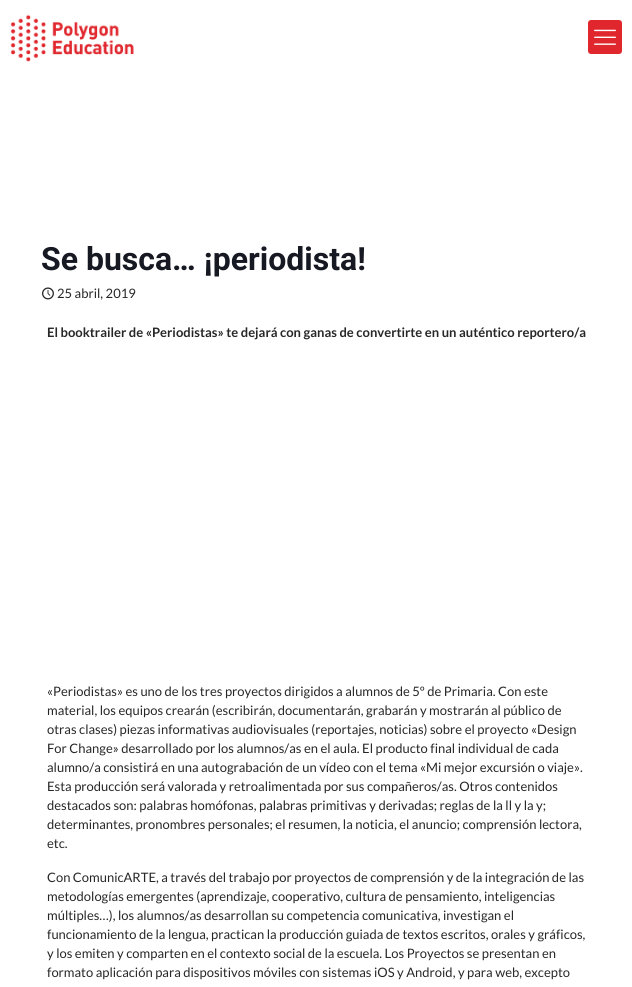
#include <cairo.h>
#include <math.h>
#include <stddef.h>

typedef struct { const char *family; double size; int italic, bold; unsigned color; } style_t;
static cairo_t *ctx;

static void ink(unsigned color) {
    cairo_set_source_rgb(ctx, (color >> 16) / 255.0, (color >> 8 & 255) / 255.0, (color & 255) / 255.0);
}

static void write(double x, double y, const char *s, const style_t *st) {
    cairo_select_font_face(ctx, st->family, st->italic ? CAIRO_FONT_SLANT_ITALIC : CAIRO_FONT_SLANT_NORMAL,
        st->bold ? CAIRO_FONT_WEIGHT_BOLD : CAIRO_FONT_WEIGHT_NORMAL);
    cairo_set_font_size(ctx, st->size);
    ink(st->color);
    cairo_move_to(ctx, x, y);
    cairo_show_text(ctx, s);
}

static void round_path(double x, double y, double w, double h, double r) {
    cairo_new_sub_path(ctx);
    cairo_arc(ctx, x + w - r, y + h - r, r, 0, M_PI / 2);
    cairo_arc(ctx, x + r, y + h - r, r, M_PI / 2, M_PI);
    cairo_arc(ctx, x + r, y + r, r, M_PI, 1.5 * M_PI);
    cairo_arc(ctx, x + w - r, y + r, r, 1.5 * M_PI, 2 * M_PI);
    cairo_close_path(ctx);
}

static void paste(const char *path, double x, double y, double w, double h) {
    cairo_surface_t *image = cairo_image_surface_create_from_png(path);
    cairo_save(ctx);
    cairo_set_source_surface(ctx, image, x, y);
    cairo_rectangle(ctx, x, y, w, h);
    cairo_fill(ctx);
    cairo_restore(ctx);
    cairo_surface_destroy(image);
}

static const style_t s1 = {"Roboto", 32, 0, 1, 0x161922};
static const style_t s2 = {"Lato", 13, 0, 0, 0x272727};
static const style_t s3 = {"Lato", 13, 0, 1, 0x272727};

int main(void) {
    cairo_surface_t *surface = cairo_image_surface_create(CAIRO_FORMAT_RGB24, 632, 987);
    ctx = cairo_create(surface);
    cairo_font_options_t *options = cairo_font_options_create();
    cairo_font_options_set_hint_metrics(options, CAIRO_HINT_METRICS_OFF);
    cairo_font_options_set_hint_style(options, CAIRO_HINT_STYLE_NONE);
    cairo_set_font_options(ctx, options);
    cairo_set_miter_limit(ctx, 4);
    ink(0xffffff);
    cairo_paint(ctx);
    paste("pic1.png", 10, 14, 124, 48);
    ink(0xe0272e);
    round_path(588, 20, 34, 34, 3);
    cairo_fill(ctx);
    paste("pic2.png", 594, 29, 22, 16);
    write(41, 270, "Se busca… ¡periodista!", &s1);
    paste("pic3.png", 42, 287, 12, 13);
    write(57, 298, "25 abril, 2019", &s2);
    write(47, 337, "El booktrailer de «Periodistas» te dejará con ganas de convertirte en un auténtico reportero/a", &s3);
    write(47, 696, "«Periodistas» es uno de los tres proyectos dirigidos a alumnos de 5º de Primaria. Con este", &s2);
    write(47, 715, "material, los equipos crearán (escribirán, documentarán, grabarán y mostrarán al público de", &s2);
    write(47, 734, "otras clases) piezas informativas audiovisuales (reportajes, noticias) sobre el proyecto «Design", &s2);
    write(47, 753, "For Change» desarrollado por los alumnos/as en el aula. El producto final individual de cada", &s2);
    write(47, 772, "alumno/a consistirá en una autograbación de un vídeo con el tema «Mi mejor excursión o viaje».", &s2);
    write(47, 791, "Esta producción será valorada y retroalimentada por sus compañeros/as. Otros contenidos", &s2);
    write(47, 810, "destacados son: palabras homófonas, palabras primitivas y derivadas; reglas de la ll y la y;", &s2);
    write(47, 829, "determinantes, pronombres personales; el resumen, la noticia, el anuncio; comprensión lectora,", &s2);
    write(47, 848, "etc.", &s2);
    write(47, 882, "Con ComunicARTE, a través del trabajo por proyectos de comprensión y de la integración de las", &s2);
    write(47, 901, "metodologías emergentes (aprendizaje, cooperativo, cultura de pensamiento, inteligencias", &s2);
    write(47, 920, "múltiples…), los alumnos/as desarrollan su competencia comunicativa, investigan el", &s2);
    write(47, 939, "funcionamiento de la lengua, practican la producción guiada de textos escritos, orales y gráficos,", &s2);
    write(47, 958, "y los emiten y comparten en el contexto social de la escuela. Los Proyectos se presentan en", &s2);
    write(47, 977, "formato aplicación para dispositivos móviles con sistemas iOS y Android, y para web, excepto", &s2);
    cairo_surface_write_to_png(surface, "screenshot.png");
    cairo_font_options_destroy(options);
    cairo_destroy(ctx);
    cairo_surface_destroy(surface);
    return 0;
}
